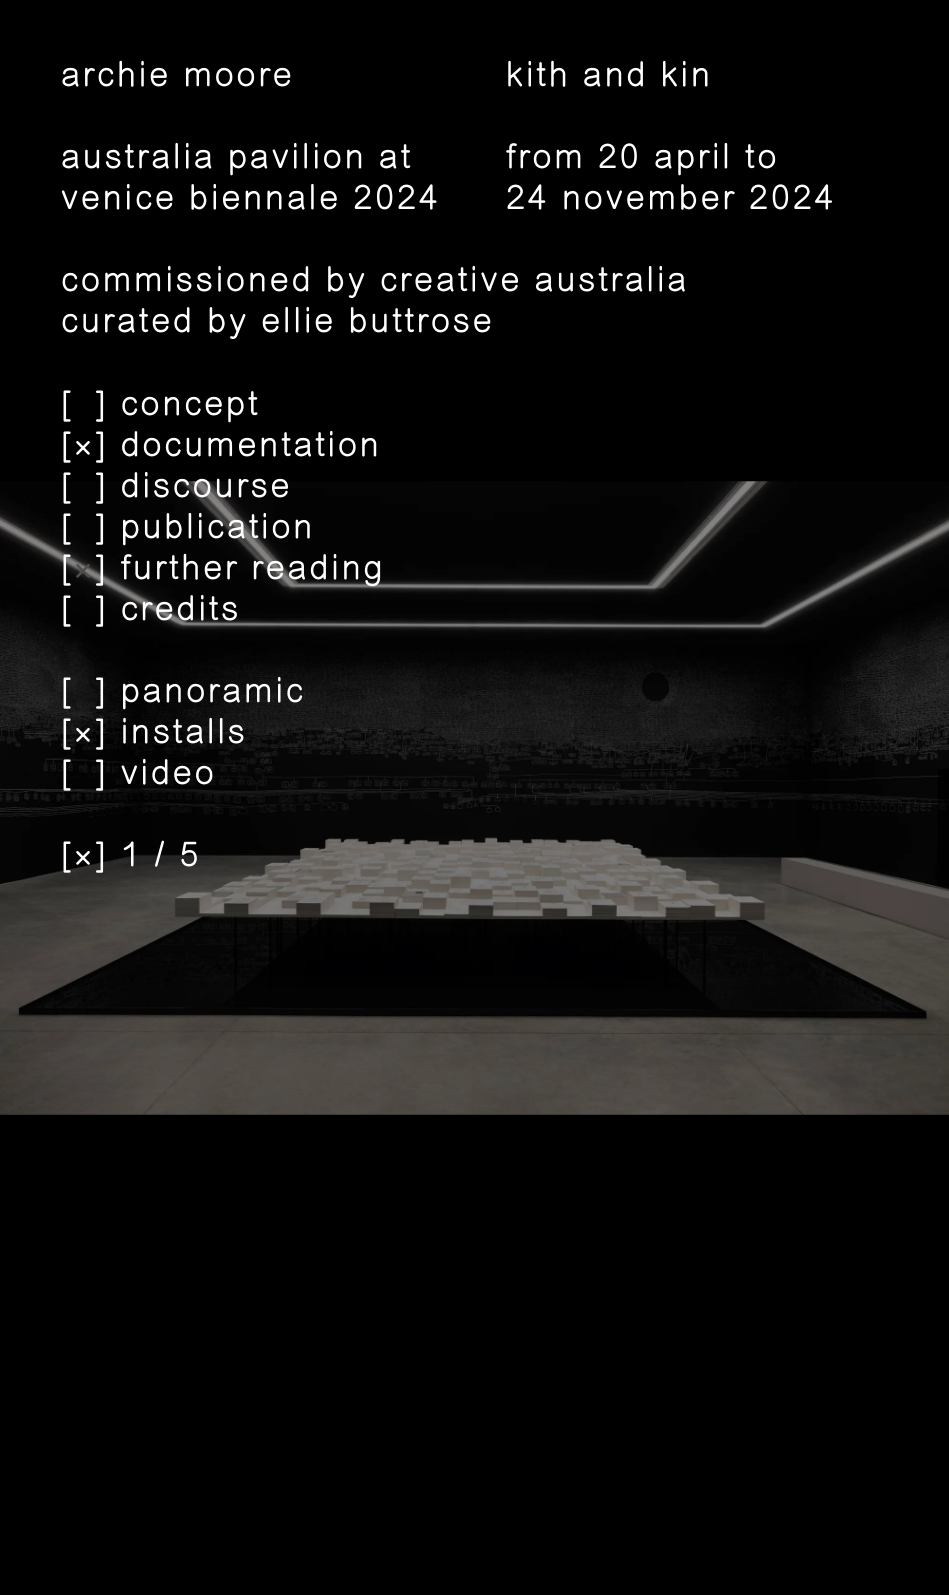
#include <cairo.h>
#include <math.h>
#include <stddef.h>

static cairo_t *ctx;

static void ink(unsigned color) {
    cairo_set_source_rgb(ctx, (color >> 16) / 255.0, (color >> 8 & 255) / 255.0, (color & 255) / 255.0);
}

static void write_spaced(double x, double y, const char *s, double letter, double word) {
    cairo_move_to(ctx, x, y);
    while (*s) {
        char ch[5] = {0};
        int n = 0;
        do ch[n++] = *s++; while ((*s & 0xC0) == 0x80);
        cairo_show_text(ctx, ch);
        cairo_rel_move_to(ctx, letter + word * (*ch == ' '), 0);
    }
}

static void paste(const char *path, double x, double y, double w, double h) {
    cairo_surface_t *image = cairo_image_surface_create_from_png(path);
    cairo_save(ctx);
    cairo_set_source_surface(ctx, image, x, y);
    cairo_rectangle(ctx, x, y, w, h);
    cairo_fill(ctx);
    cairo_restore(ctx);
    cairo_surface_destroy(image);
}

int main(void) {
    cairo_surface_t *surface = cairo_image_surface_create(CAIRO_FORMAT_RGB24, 949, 1595);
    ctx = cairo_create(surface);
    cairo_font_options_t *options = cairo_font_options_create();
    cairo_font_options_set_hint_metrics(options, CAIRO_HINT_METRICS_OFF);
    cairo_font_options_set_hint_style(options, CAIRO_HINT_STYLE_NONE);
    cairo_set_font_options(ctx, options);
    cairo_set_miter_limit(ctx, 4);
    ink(0x000000);
    cairo_paint(ctx);
    cairo_select_font_face(ctx, "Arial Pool", CAIRO_FONT_SLANT_NORMAL, CAIRO_FONT_WEIGHT_NORMAL);
    cairo_set_font_size(ctx, 34.25);
    ink(0xffffff);
    write_spaced(61, 86, "archie moore", 2.8, 0);
    write_spaced(506, 86, "kith and kin", 2.8, 0);
    write_spaced(61, 168, "australia pavilion at", 2.8, 0);
    write_spaced(61, 209, "venice biennale 2024", 2.8, 0);
    write_spaced(506, 168, "from 20 april to", 2.8, 0);
    write_spaced(506, 209, "24 november 2024", 2.8, 0);
    write_spaced(61, 291, "commissioned by creative australia", 2.8, 0);
    write_spaced(61, 332, "curated by ellie buttrose", 2.8, 0);
    write_spaced(61, 415, "[", 2.8, 0);
    write_spaced(96, 415, "] concept", 2.8, 0);
    write_spaced(61, 456, "[", 2.8, 0);
    write_spaced(73, 460, "×", 2.8, 0);
    write_spaced(96, 456, "] documentation", 2.8, 0);
    paste("pic1.png", 0, 481, 949, 634);
    write_spaced(61, 497, "[", 2.8, 0);
    write_spaced(96, 497, "] discourse", 2.8, 0);
    write_spaced(61, 538, "[", 2.8, 0);
    write_spaced(96, 538, "] publication", 2.8, 0);
    write_spaced(61, 579, "[", 2.8, 0);
    ink(0x4f4e4d);
    write_spaced(73, 583, "×", 2.8, 0);
    ink(0xffffff);
    write_spaced(96, 579, "] further reading", 2.8, 0);
    write_spaced(61, 620, "[", 2.8, 0);
    write_spaced(96, 620, "] credits", 2.8, 0);
    write_spaced(61, 702, "[", 2.8, 0);
    write_spaced(96, 702, "] panoramic", 2.8, 0);
    write_spaced(61, 743, "[", 2.8, 0);
    write_spaced(73, 747, "×", 2.8, 0);
    write_spaced(96, 743, "] installs", 2.8, 0);
    write_spaced(61, 784, "[", 2.8, 0);
    write_spaced(96, 784, "] video", 2.8, 0);
    write_spaced(61, 866, "[", 2.8, 0);
    write_spaced(73, 870, "×", 2.8, 0);
    write_spaced(96, 866, "] 1 / 5", 2.8, 0);
    cairo_surface_write_to_png(surface, "screenshot.png");
    cairo_font_options_destroy(options);
    cairo_destroy(ctx);
    cairo_surface_destroy(surface);
    return 0;
}
